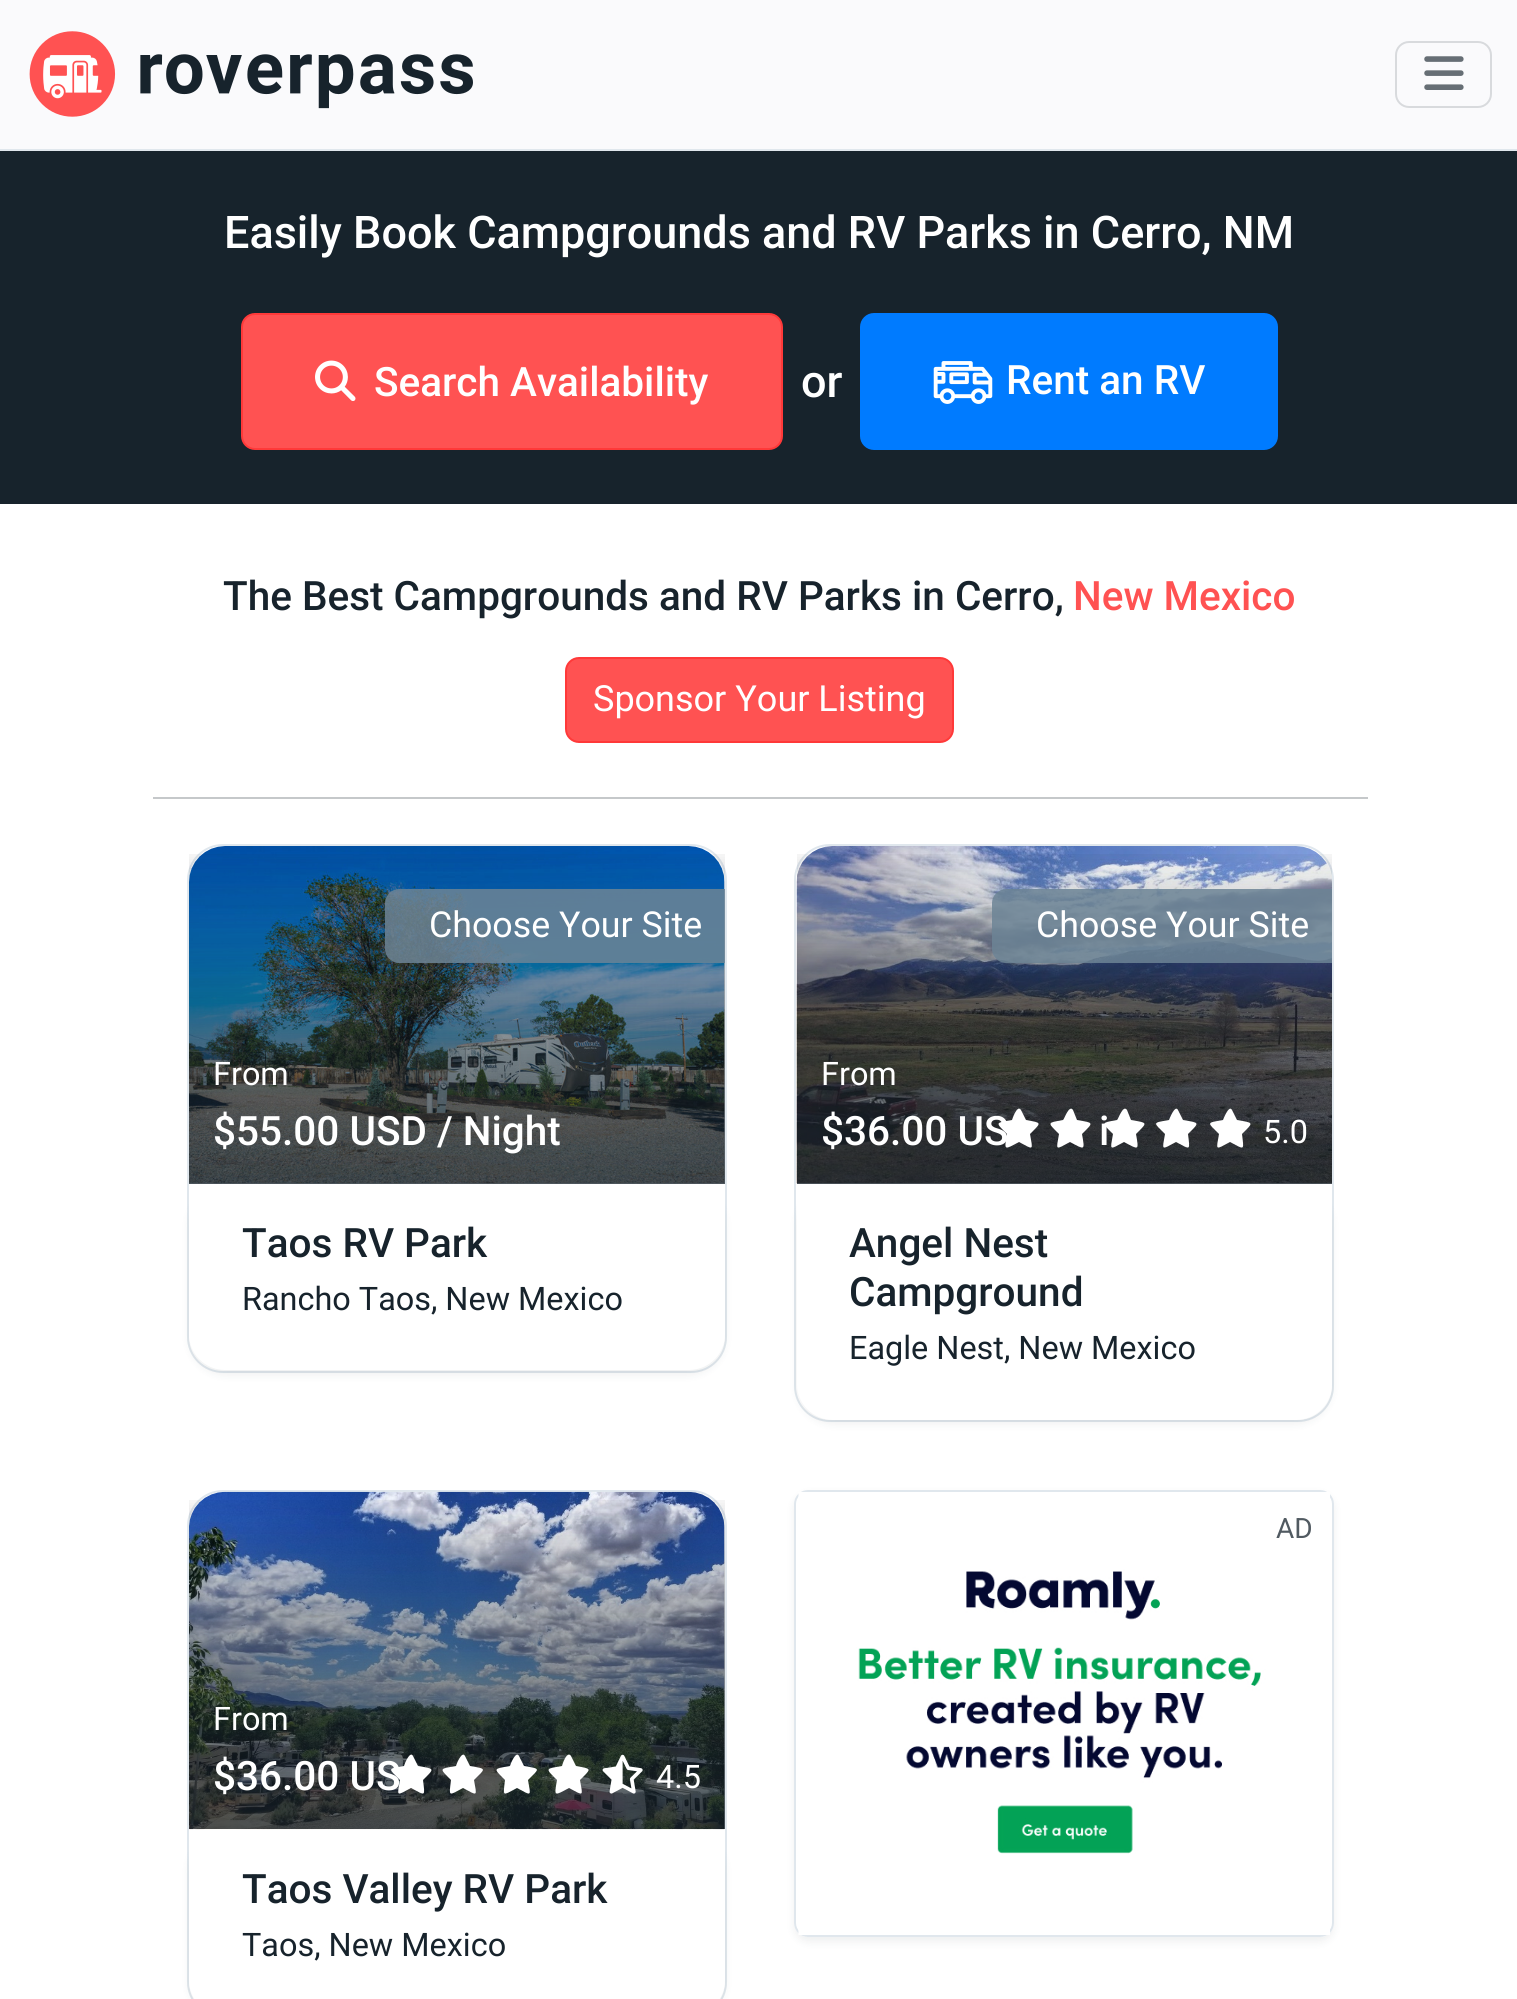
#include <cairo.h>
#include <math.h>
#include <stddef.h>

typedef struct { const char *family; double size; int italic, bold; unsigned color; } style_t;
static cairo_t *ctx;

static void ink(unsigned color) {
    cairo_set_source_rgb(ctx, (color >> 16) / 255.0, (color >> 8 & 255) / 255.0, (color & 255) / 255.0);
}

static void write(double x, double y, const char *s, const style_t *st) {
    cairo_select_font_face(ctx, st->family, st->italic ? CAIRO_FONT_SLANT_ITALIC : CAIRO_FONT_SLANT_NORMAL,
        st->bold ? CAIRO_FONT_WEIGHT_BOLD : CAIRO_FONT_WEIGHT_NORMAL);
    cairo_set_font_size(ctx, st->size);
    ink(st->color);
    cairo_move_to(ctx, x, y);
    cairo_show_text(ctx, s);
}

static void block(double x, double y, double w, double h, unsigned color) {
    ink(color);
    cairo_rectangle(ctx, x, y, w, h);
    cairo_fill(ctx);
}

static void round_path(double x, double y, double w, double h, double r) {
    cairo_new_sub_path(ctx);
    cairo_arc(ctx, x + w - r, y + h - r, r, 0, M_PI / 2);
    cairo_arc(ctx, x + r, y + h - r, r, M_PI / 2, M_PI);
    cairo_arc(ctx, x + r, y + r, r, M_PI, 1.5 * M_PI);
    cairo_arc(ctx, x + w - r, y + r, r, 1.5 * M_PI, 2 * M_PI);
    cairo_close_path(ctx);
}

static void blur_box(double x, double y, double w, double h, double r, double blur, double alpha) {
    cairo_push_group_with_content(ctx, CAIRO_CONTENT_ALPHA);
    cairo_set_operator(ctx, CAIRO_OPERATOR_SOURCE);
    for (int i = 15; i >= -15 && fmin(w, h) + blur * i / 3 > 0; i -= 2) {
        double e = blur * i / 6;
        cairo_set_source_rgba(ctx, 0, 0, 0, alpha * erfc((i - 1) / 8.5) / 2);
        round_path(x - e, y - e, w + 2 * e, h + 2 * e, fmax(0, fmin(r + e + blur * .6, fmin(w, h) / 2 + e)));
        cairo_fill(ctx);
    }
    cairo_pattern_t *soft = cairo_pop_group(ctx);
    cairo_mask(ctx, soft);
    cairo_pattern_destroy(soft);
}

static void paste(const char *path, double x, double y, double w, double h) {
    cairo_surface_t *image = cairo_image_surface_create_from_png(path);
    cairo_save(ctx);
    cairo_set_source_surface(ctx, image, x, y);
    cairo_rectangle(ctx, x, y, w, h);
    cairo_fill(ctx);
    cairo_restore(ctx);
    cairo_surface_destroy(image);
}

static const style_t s1 = {"Roboto Medium", 45, 0, 0, 0xffffff};
static const style_t s2 = {"Roboto Medium", 40.5, 0, 0, 0xffffff};
static const style_t s3 = {"Roboto Medium", 40.5, 0, 0, 0x17232c};
static const style_t s4 = {"Roboto Medium", 40.5, 0, 0, 0xff5252};
static const style_t s5 = {"Roboto", 36, 0, 0, 0xffffff};
static const style_t s6 = {"Roboto", 35.75, 0, 0, 0xffffff};
static const style_t s7 = {"Roboto", 32.4, 0, 0, 0xffffff};
static const style_t s8 = {"Roboto", 32.4, 0, 0, 0x17232c};
static const style_t s9 = {"Roboto", 28, 0, 0, 0x515a61};

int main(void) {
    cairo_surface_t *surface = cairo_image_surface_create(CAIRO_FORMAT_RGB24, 1517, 1999);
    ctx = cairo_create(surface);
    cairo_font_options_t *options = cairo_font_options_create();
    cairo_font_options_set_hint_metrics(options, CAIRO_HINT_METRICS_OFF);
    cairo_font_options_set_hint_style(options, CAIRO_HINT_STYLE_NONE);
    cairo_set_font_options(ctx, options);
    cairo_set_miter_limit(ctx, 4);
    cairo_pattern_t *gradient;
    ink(0xffffff);
    cairo_paint(ctx);
    block(0, 0, 1517, 149, 0xfafafc);
    block(0, 149, 1517, 2, 0xe0e7ed);
    paste("pic1.png", 29, 31, 444, 86);
    round_path(1396, 42, 95, 65, 13);
    ink(0xd8dadd);
    cairo_stroke(ctx);
    paste("pic2.png", 1424, 56, 40, 34);
    block(0, 151, 1517, 353, 0x17232c);
    write(224, 248, "Easily Book Campgrounds and RV Parks in Cerro, NM", &s1);
    ink(0xff5252);
    round_path(242, 314, 540, 135, 13);
    cairo_fill_preserve(ctx);
    ink(0xff3939);
    cairo_stroke(ctx);
    paste("pic3.png", 315, 360, 41, 41);
    write(374, 396, "Search Availability", &s2);
    write(801, 397, "or", &s1);
    ink(0x007bff);
    round_path(860, 313, 418, 137, 14);
    cairo_fill(ctx);
    paste("pic4.png", 933, 361, 60, 43);
    write(1006, 394, "Rent an RV", &s2);
    write(223, 610, "The Best Campgrounds and RV Parks in Cerro,", &s3);
    write(1073, 610, "New Mexico", &s4);
    round_path(566, 658, 387, 84, 13);
    cairo_fill_preserve(ctx);
    ink(0xff3939);
    cairo_stroke(ctx);
    write(593, 711, "Sponsor Your Listing", &s5);
    block(153, 797, 1215, 2, 0xc5c8ca);
    round_path(188, 845, 538, 527, 35);
    ink(0xe0e7ed);
    cairo_stroke(ctx);
    ink(0x17232c);
    blur_box(189, 1188, 536, 187, 36, 4.5, 0.07);
    ink(0xffffff);
    cairo_new_path(ctx);
    cairo_move_to(ctx, 225, 846);
    cairo_line_to(ctx, 689, 846);
    cairo_curve_to(ctx, 709, 846, 725, 862, 725, 882);
    cairo_line_to(ctx, 725, 1184);
    cairo_line_to(ctx, 189, 1184);
    cairo_line_to(ctx, 189, 882);
    cairo_curve_to(ctx, 189, 862, 205, 846, 225, 846);
    cairo_close_path(ctx);
    cairo_fill(ctx);
    paste("pic5.png", 189, 846, 536, 338);
    gradient = cairo_pattern_create_linear(457, 846, 457, 1184);
    cairo_pattern_add_color_stop_rgba(gradient, 0, 0.09, 0.137, 0.173, 0.01);
    cairo_pattern_add_color_stop_rgba(gradient, 1, 0.09, 0.137, 0.173, 0.5);
    cairo_set_source(ctx, gradient);
    cairo_pattern_destroy(gradient);
    cairo_rectangle(ctx, 189, 854, 536, 330);
    cairo_fill(ctx);
    cairo_rectangle(ctx, 189, 854, 536, 330);
    cairo_fill(ctx);
    cairo_set_source_rgba(ctx, 0.424, 0.518, 0.584, 0.85);
    cairo_new_path(ctx);
    cairo_move_to(ctx, 399, 889);
    cairo_line_to(ctx, 725, 889);
    cairo_line_to(ctx, 725, 963);
    cairo_line_to(ctx, 399, 963);
    cairo_curve_to(ctx, 391.5, 963, 385, 956.5, 385, 949);
    cairo_line_to(ctx, 385, 903);
    cairo_curve_to(ctx, 385, 895.5, 391.5, 889, 399, 889);
    cairo_close_path(ctx);
    cairo_fill(ctx);
    write(429, 937, "Choose Your Site", &s6);
    write(213, 1085, "From", &s7);
    write(213, 1145, "$55.00 USD / Night", &s2);
    cairo_new_path(ctx);
    cairo_move_to(ctx, 189, 1184);
    cairo_line_to(ctx, 725, 1184);
    cairo_line_to(ctx, 725, 1334);
    cairo_curve_to(ctx, 725, 1354, 709, 1370, 689, 1370);
    cairo_line_to(ctx, 225, 1370);
    cairo_curve_to(ctx, 205, 1370, 189, 1354, 189, 1334);
    cairo_close_path(ctx);
    cairo_fill(ctx);
    write(242, 1257, "Taos RV Park", &s3);
    write(242, 1310, "Rancho Taos, New Mexico", &s8);
    round_path(795, 845, 538, 576, 35);
    ink(0xe0e7ed);
    cairo_stroke(ctx);
    ink(0x17232c);
    blur_box(797, 1188, 535, 236, 36, 4.5, 0.07);
    ink(0xffffff);
    cairo_new_path(ctx);
    cairo_move_to(ctx, 833, 846);
    cairo_line_to(ctx, 1296, 846);
    cairo_curve_to(ctx, 1316, 846, 1332, 862, 1332, 882);
    cairo_line_to(ctx, 1332, 1184);
    cairo_line_to(ctx, 797, 1184);
    cairo_line_to(ctx, 797, 882);
    cairo_curve_to(ctx, 797, 862, 813, 846, 833, 846);
    cairo_close_path(ctx);
    cairo_fill(ctx);
    paste("pic6.png", 796, 846, 536, 338);
    gradient = cairo_pattern_create_linear(1064, 846, 1064, 1184);
    cairo_pattern_add_color_stop_rgba(gradient, 0, 0.09, 0.137, 0.173, 0.01);
    cairo_pattern_add_color_stop_rgba(gradient, 1, 0.09, 0.137, 0.173, 0.5);
    cairo_set_source(ctx, gradient);
    cairo_pattern_destroy(gradient);
    cairo_rectangle(ctx, 797, 854, 535, 330);
    cairo_fill(ctx);
    cairo_rectangle(ctx, 797, 854, 535, 330);
    cairo_fill(ctx);
    cairo_set_source_rgba(ctx, 0.424, 0.518, 0.584, 0.85);
    cairo_new_path(ctx);
    cairo_move_to(ctx, 1006, 889);
    cairo_line_to(ctx, 1332, 889);
    cairo_line_to(ctx, 1332, 963);
    cairo_line_to(ctx, 1006, 963);
    cairo_curve_to(ctx, 998.5, 963, 992, 956.5, 992, 949);
    cairo_line_to(ctx, 992, 903);
    cairo_curve_to(ctx, 992, 895.5, 998.5, 889, 1006, 889);
    cairo_close_path(ctx);
    cairo_fill(ctx);
    write(1036, 937, "Choose Your Site", &s6);
    write(821, 1085, "From", &s7);
    write(821, 1145, "$36.00 US", &s2);
    write(1099, 1145, "i", &s2);
    cairo_new_path(ctx);
    cairo_move_to(ctx, 1021, 1110);
    cairo_curve_to(ctx, 1017, 1104, 1012, 1120, 1012, 1120);
    cairo_curve_to(ctx, 995, 1123, 995, 1122, 1007, 1134);
    cairo_curve_to(ctx, 1004, 1151, 1004, 1150, 1019, 1142);
    cairo_curve_to(ctx, 1034, 1150, 1033, 1151, 1030, 1134);
    cairo_curve_to(ctx, 1042, 1122, 1042, 1123, 1026, 1120);
    cairo_close_path(ctx);
    cairo_fill(ctx);
    cairo_new_path(ctx);
    cairo_move_to(ctx, 1073, 1110);
    cairo_curve_to(ctx, 1069, 1104, 1064, 1120, 1063, 1120);
    cairo_curve_to(ctx, 1047, 1123, 1047, 1122, 1059, 1134);
    cairo_curve_to(ctx, 1056, 1151, 1055, 1150, 1070, 1142);
    cairo_curve_to(ctx, 1085, 1150, 1085, 1151, 1082, 1134);
    cairo_curve_to(ctx, 1094, 1122, 1094, 1123, 1077, 1120);
    cairo_close_path(ctx);
    cairo_fill(ctx);
    cairo_new_path(ctx);
    cairo_move_to(ctx, 1127, 1110);
    cairo_curve_to(ctx, 1123, 1104, 1118, 1120, 1117, 1120);
    cairo_curve_to(ctx, 1101, 1123, 1101, 1122, 1113, 1134);
    cairo_curve_to(ctx, 1110, 1151, 1109, 1150, 1124, 1142);
    cairo_curve_to(ctx, 1139, 1150, 1139, 1151, 1136, 1134);
    cairo_curve_to(ctx, 1148, 1122, 1148, 1123, 1131, 1120);
    cairo_close_path(ctx);
    cairo_fill(ctx);
    cairo_new_path(ctx);
    cairo_move_to(ctx, 1178, 1110);
    cairo_curve_to(ctx, 1175, 1104, 1169, 1120, 1169, 1120);
    cairo_curve_to(ctx, 1152, 1123, 1153, 1122, 1165, 1134);
    cairo_curve_to(ctx, 1162, 1151, 1161, 1150, 1176, 1142);
    cairo_curve_to(ctx, 1191, 1150, 1190, 1151, 1188, 1134);
    cairo_curve_to(ctx, 1200, 1122, 1200, 1123, 1183, 1120);
    cairo_close_path(ctx);
    cairo_fill(ctx);
    cairo_new_path(ctx);
    cairo_move_to(ctx, 1232, 1110);
    cairo_curve_to(ctx, 1229, 1104, 1223, 1120, 1223, 1120);
    cairo_curve_to(ctx, 1206, 1123, 1207, 1122, 1219, 1134);
    cairo_curve_to(ctx, 1216, 1151, 1215, 1150, 1230, 1142);
    cairo_curve_to(ctx, 1245, 1150, 1244, 1151, 1242, 1134);
    cairo_curve_to(ctx, 1254, 1122, 1254, 1123, 1237, 1120);
    cairo_close_path(ctx);
    cairo_fill(ctx);
    write(1263, 1143, "5.0", &s7);
    cairo_new_path(ctx);
    cairo_move_to(ctx, 797, 1184);
    cairo_line_to(ctx, 1332, 1184);
    cairo_line_to(ctx, 1332, 1384);
    cairo_curve_to(ctx, 1332, 1404, 1316, 1420, 1296, 1420);
    cairo_line_to(ctx, 833, 1420);
    cairo_curve_to(ctx, 813, 1420, 797, 1404, 797, 1384);
    cairo_close_path(ctx);
    cairo_fill(ctx);
    write(849, 1257, "Angel Nest", &s3);
    write(849, 1306, "Campground", &s3);
    write(849, 1359, "Eagle Nest, New Mexico", &s8);
    cairo_save(ctx);
    cairo_set_fill_rule(ctx, CAIRO_FILL_RULE_EVEN_ODD);
    cairo_new_path(ctx);
    cairo_move_to(ctx, 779, 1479);
    cairo_line_to(ctx, 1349, 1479);
    cairo_line_to(ctx, 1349, 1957);
    cairo_line_to(ctx, 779, 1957);
    cairo_close_path(ctx);
    cairo_move_to(ctx, 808, 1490);
    cairo_line_to(ctx, 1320, 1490);
    cairo_curve_to(ctx, 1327.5, 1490, 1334, 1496.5, 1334, 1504);
    cairo_line_to(ctx, 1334, 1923);
    cairo_curve_to(ctx, 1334, 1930.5, 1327.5, 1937, 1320, 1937);
    cairo_line_to(ctx, 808, 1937);
    cairo_curve_to(ctx, 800.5, 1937, 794, 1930.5, 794, 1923);
    cairo_line_to(ctx, 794, 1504);
    cairo_curve_to(ctx, 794, 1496.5, 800.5, 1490, 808, 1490);
    cairo_close_path(ctx);
    cairo_clip(ctx);
    ink(0x17232c);
    blur_box(794, 1494, 540, 448, 14, 4.5, 0.07);
    cairo_restore(ctx);
    round_path(795, 1491, 538, 445, 13);
    ink(0xe0e7ed);
    cairo_stroke(ctx);
    paste("pic7.png", 798, 1492, 532, 443);
    write(1276, 1538, "AD", &s9);
    round_path(188, 1491, 538, 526, 35);
    ink(0xe0e7ed);
    cairo_stroke(ctx);
    ink(0x17232c);
    blur_box(189, 1834, 536, 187, 36, 4.5, 0.07);
    ink(0xffffff);
    cairo_new_path(ctx);
    cairo_move_to(ctx, 225, 1492);
    cairo_line_to(ctx, 689, 1492);
    cairo_curve_to(ctx, 709, 1492, 725, 1508, 725, 1528);
    cairo_line_to(ctx, 725, 1829);
    cairo_line_to(ctx, 189, 1829);
    cairo_line_to(ctx, 189, 1528);
    cairo_curve_to(ctx, 189, 1508, 205, 1492, 225, 1492);
    cairo_close_path(ctx);
    cairo_fill(ctx);
    cairo_new_path(ctx);
    cairo_move_to(ctx, 189, 1829);
    cairo_line_to(ctx, 725, 1829);
    cairo_line_to(ctx, 725, 1980);
    cairo_curve_to(ctx, 725, 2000, 709, 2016, 689, 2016);
    cairo_line_to(ctx, 225, 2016);
    cairo_curve_to(ctx, 205, 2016, 189, 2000, 189, 1980);
    cairo_close_path(ctx);
    cairo_fill(ctx);
    paste("pic8.png", 189, 1491, 536, 339);
    gradient = cairo_pattern_create_linear(457, 1492, 457, 1829);
    cairo_pattern_add_color_stop_rgba(gradient, 0, 0.09, 0.137, 0.173, 0.01);
    cairo_pattern_add_color_stop_rgba(gradient, 1, 0.09, 0.137, 0.173, 0.5);
    cairo_set_source(ctx, gradient);
    cairo_pattern_destroy(gradient);
    cairo_rectangle(ctx, 189, 1500, 536, 329);
    cairo_fill(ctx);
    cairo_rectangle(ctx, 189, 1500, 536, 329);
    cairo_fill(ctx);
    write(213, 1730, "From", &s7);
    write(213, 1790, "$36.00 US", &s2);
    cairo_new_path(ctx);
    cairo_move_to(ctx, 413, 1756);
    cairo_curve_to(ctx, 410, 1750, 404, 1765, 404, 1766);
    cairo_curve_to(ctx, 387, 1769, 388, 1768, 400, 1780);
    cairo_curve_to(ctx, 397, 1797, 396, 1796, 411, 1788);
    cairo_curve_to(ctx, 426, 1796, 425, 1797, 423, 1780);
    cairo_curve_to(ctx, 435, 1768, 435, 1769, 418, 1766);
    cairo_close_path(ctx);
    cairo_fill(ctx);
    cairo_new_path(ctx);
    cairo_move_to(ctx, 465, 1756);
    cairo_curve_to(ctx, 462, 1750, 456, 1765, 456, 1766);
    cairo_curve_to(ctx, 439, 1769, 439, 1768, 451, 1780);
    cairo_curve_to(ctx, 449, 1797, 448, 1796, 463, 1788);
    cairo_curve_to(ctx, 478, 1796, 477, 1797, 474, 1780);
    cairo_curve_to(ctx, 486, 1768, 487, 1769, 470, 1766);
    cairo_close_path(ctx);
    cairo_fill(ctx);
    cairo_new_path(ctx);
    cairo_move_to(ctx, 519, 1756);
    cairo_curve_to(ctx, 516, 1750, 510, 1765, 510, 1766);
    cairo_curve_to(ctx, 493, 1769, 493, 1768, 505, 1780);
    cairo_curve_to(ctx, 503, 1797, 502, 1796, 517, 1788);
    cairo_curve_to(ctx, 532, 1796, 531, 1797, 528, 1780);
    cairo_curve_to(ctx, 540, 1768, 541, 1769, 524, 1766);
    cairo_close_path(ctx);
    cairo_fill(ctx);
    cairo_new_path(ctx);
    cairo_move_to(ctx, 571, 1756);
    cairo_curve_to(ctx, 567, 1750, 562, 1765, 562, 1766);
    cairo_curve_to(ctx, 545, 1769, 545, 1768, 557, 1780);
    cairo_curve_to(ctx, 554, 1797, 554, 1796, 569, 1788);
    cairo_curve_to(ctx, 584, 1796, 583, 1797, 580, 1780);
    cairo_curve_to(ctx, 592, 1768, 592, 1769, 576, 1766);
    cairo_close_path(ctx);
    cairo_fill(ctx);
    paste("pic9.png", 602, 1754, 41, 40);
    write(656, 1788, "4.5", &s7);
    write(242, 1903, "Taos Valley RV Park", &s3);
    write(242, 1956, "Taos, New Mexico", &s8);
    cairo_surface_write_to_png(surface, "screenshot.png");
    cairo_font_options_destroy(options);
    cairo_destroy(ctx);
    cairo_surface_destroy(surface);
    return 0;
}
